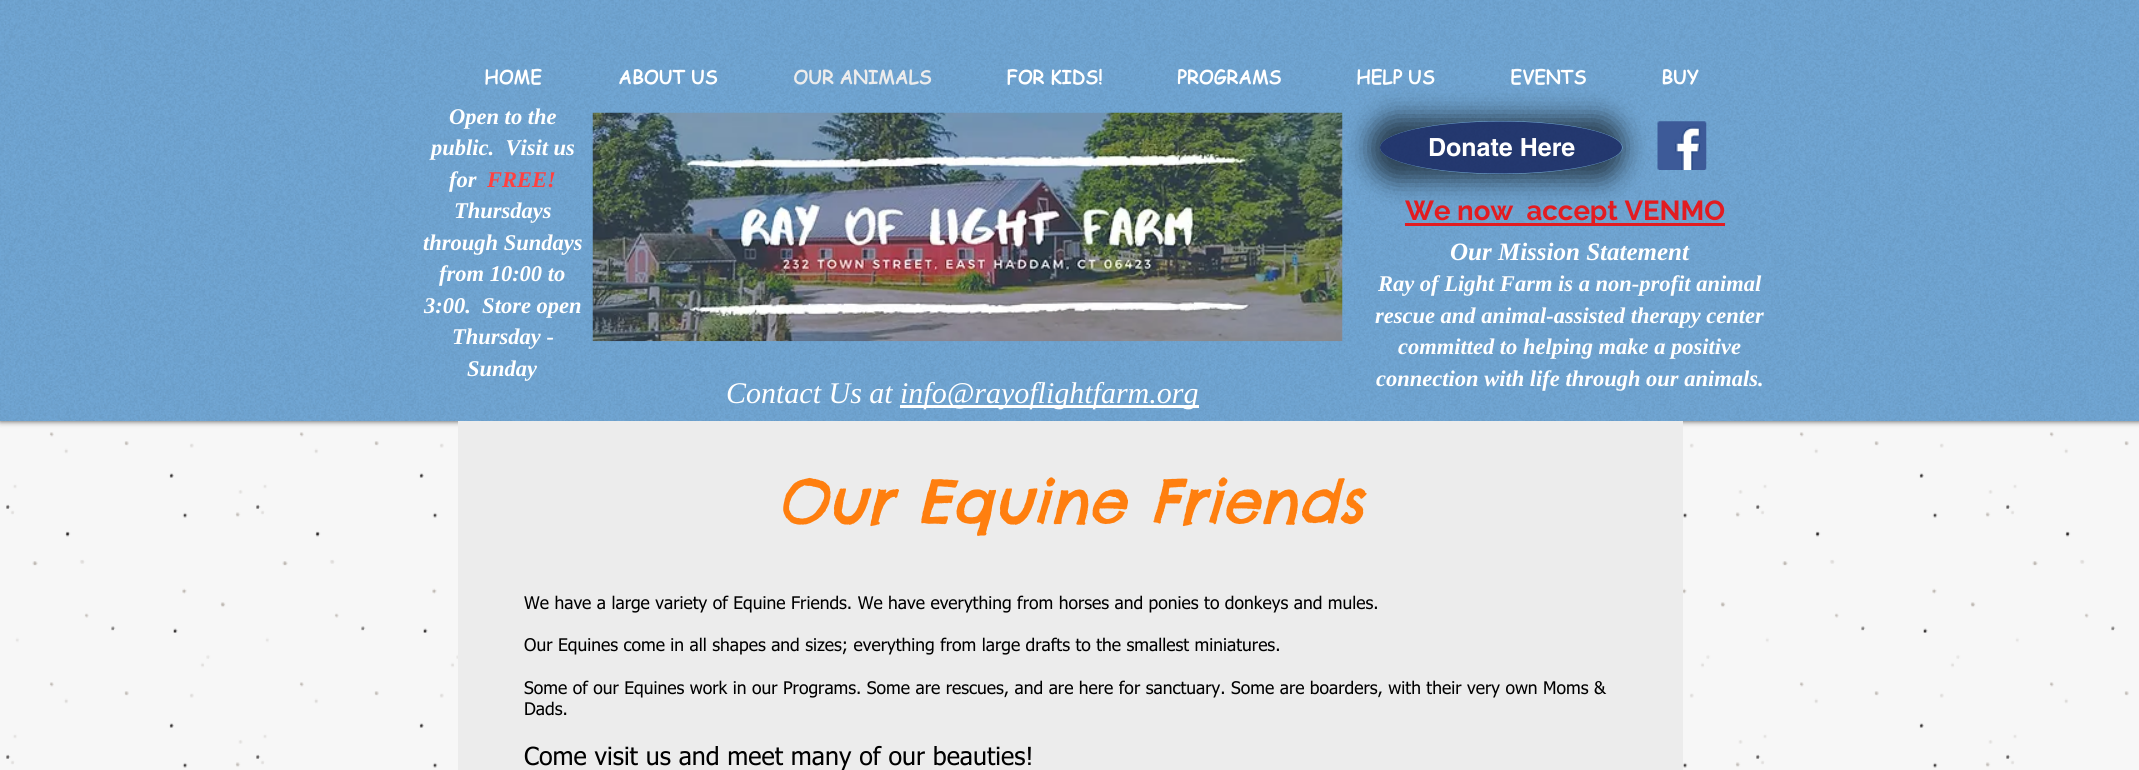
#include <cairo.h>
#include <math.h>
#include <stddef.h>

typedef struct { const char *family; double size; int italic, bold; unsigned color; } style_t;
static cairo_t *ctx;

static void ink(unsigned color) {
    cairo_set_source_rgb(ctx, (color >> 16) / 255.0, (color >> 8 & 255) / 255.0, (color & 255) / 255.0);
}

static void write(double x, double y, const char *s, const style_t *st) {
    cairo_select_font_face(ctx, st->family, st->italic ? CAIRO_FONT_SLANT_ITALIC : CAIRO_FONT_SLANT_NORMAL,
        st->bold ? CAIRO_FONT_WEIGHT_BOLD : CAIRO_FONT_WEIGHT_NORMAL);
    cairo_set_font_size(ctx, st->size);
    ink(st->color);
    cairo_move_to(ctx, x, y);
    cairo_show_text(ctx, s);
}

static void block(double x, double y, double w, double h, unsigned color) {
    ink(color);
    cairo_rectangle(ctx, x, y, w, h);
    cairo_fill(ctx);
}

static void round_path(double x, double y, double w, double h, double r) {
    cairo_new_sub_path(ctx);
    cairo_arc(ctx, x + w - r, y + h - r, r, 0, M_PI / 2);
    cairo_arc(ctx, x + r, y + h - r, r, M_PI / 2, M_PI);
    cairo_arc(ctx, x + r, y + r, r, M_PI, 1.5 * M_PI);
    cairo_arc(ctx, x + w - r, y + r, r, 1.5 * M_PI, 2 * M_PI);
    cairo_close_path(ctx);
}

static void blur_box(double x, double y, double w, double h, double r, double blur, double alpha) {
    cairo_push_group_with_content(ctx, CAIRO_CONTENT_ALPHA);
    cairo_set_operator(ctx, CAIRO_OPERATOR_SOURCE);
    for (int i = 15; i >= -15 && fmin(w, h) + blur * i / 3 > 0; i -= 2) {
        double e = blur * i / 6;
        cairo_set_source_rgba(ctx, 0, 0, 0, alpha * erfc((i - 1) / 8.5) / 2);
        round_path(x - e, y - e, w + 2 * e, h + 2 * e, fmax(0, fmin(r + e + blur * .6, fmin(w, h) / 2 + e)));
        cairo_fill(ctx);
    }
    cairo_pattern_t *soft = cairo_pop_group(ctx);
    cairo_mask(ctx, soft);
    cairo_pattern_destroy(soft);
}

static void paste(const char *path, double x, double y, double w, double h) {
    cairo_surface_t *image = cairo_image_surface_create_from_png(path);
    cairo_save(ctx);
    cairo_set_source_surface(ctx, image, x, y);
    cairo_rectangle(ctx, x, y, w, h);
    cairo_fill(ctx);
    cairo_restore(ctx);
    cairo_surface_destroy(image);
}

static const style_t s1 = {"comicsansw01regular", 18.75, 0, 1, 0xffffff};
static const style_t s2 = {"comicsansw01regular", 18.75, 0, 1, 0xececec};
static const style_t s3 = {"Liberation Serif", 22.5, 1, 1, 0xffffff};
static const style_t s4 = {"Liberation Serif", 22.5, 1, 1, 0xff4040};
static const style_t s5 = {"helvetica", 25, 0, 1, 0xffffff};
static const style_t s6 = {"Raleway", 27.5, 0, 1, 0xe21c21};
static const style_t s7 = {"Liberation Serif", 25, 1, 1, 0xffffff};
static const style_t s8 = {"Liberation Serif", 30, 1, 0, 0xffffff};
static const style_t s9 = {"Chelsea Market", 60, 1, 0, 0xff7f0f};
static const style_t s10 = {"tahoma", 17.5, 0, 0, 0x000000};
static const style_t s11 = {"tahoma", 25, 0, 0, 0x000000};

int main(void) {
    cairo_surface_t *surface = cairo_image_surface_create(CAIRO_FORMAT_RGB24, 2139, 770);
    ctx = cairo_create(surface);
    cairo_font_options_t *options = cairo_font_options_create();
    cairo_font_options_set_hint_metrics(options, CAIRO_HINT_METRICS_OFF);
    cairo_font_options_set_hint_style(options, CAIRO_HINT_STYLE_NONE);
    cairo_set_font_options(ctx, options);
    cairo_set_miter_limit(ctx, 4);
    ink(0xf7f7f7);
    cairo_paint(ctx);
    ink(0x000000);
    blur_box(0, 0, 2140, 421, 0, 3, 0.7);
    block(0, 0, 2139, 421, 0x70a6d4);
    paste("pic1.png", 0, 0, 2139, 421);
    write(484, 84, "HOME", &s1);
    write(618, 84, "ABOUT US", &s1);
    write(793, 84, "OUR ANIMALS", &s2);
    write(1006, 84, "FOR KIDS!", &s1);
    write(1177, 84, "PROGRAMS", &s1);
    write(1356, 84, "HELP US", &s1);
    write(1510, 84, "EVENTS", &s1);
    write(1661, 84, "BUY", &s1);
    write(449, 124, "Open to the", &s3);
    write(431, 155, "public.  Visit us", &s3);
    write(449, 187, "for", &s3);
    write(487, 187, "FREE!", &s4);
    write(454, 218, "Thursdays", &s3);
    write(423, 250, "through Sundays", &s3);
    write(439, 281, "from 10:00 to", &s3);
    write(424, 313, "3:00.  Store open", &s3);
    write(452, 344, "Thursday -", &s3);
    write(467, 376, "Sunday", &s3);
    paste("pic2.png", 592, 112, 751, 230);
    cairo_save(ctx);
    cairo_set_fill_rule(ctx, CAIRO_FILL_RULE_EVEN_ODD);
    cairo_new_path(ctx);
    cairo_move_to(ctx, 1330, 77);
    cairo_line_to(ctx, 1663, 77);
    cairo_line_to(ctx, 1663, 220);
    cairo_line_to(ctx, 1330, 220);
    cairo_close_path(ctx);
    cairo_move_to(ctx, 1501, 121);
    cairo_curve_to(ctx, 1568, 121, 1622.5, 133, 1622.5, 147.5);
    cairo_curve_to(ctx, 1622.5, 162, 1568, 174, 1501, 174);
    cairo_curve_to(ctx, 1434.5, 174, 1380, 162, 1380, 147.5);
    cairo_curve_to(ctx, 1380, 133, 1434.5, 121, 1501, 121);
    cairo_close_path(ctx);
    cairo_clip(ctx);
    ink(0x000000);
    blur_box(1369, 116, 255, 65, 32.5, 12.5, 0.6);
    cairo_restore(ctx);
    cairo_set_source_rgba(ctx, 0.051, 0.09, 0.318, 0.76);
    cairo_new_path(ctx);
    cairo_move_to(ctx, 1501, 121.5);
    cairo_curve_to(ctx, 1568, 121.5, 1622, 133, 1622, 147.5);
    cairo_curve_to(ctx, 1622, 162, 1568, 173.5, 1501, 173.5);
    cairo_curve_to(ctx, 1434, 173.5, 1380, 162, 1380, 147.5);
    cairo_curve_to(ctx, 1380, 133, 1434, 121.5, 1501, 121.5);
    cairo_close_path(ctx);
    cairo_fill(ctx);
    write(1428, 156, "Donate Here", &s5);
    paste("pic3.png", 1657, 121, 50, 49);
    block(1405, 223, 320, 3, 0xe21c21);
    write(1405, 220, "We now  accept VENMO", &s6);
    write(1450, 260, "Our Mission Statement", &s7);
    write(1378, 291, "Ray of Light Farm is a non-profit animal", &s3);
    write(1375, 323, "rescue and animal-assisted therapy center", &s3);
    write(1398, 354, "committed to helping make a positive", &s3);
    write(1376, 386, "connection with life through our animals.", &s3);
    write(726, 403, "Contact Us at", &s8);
    block(900, 405, 299, 3, 0xffffff);
    write(900, 403, "info@rayoflightfarm.org", &s8);
    paste("pic4.png", 6, 432, 2123, 336);
    block(458, 421, 1225, 349, 0xececec);
    write(776, 523, "Our Equine Friends", &s9);
    write(524, 609, "We have a large variety of Equine Friends. We have everything from horses and ponies to donkeys and mules.", &s10);
    write(524, 651, "Our Equines come in all shapes and sizes; everything from large drafts to the smallest miniatures.", &s10);
    write(524, 694, "Some of our Equines work in our Programs. Some are rescues, and are here for sanctuary. Some are boarders, with their very own Moms &", &s10);
    write(524, 715, "Dads.", &s10);
    write(524, 765, "Come visit us and meet many of our beauties!", &s11);
    cairo_surface_write_to_png(surface, "screenshot.png");
    cairo_font_options_destroy(options);
    cairo_destroy(ctx);
    cairo_surface_destroy(surface);
    return 0;
}
